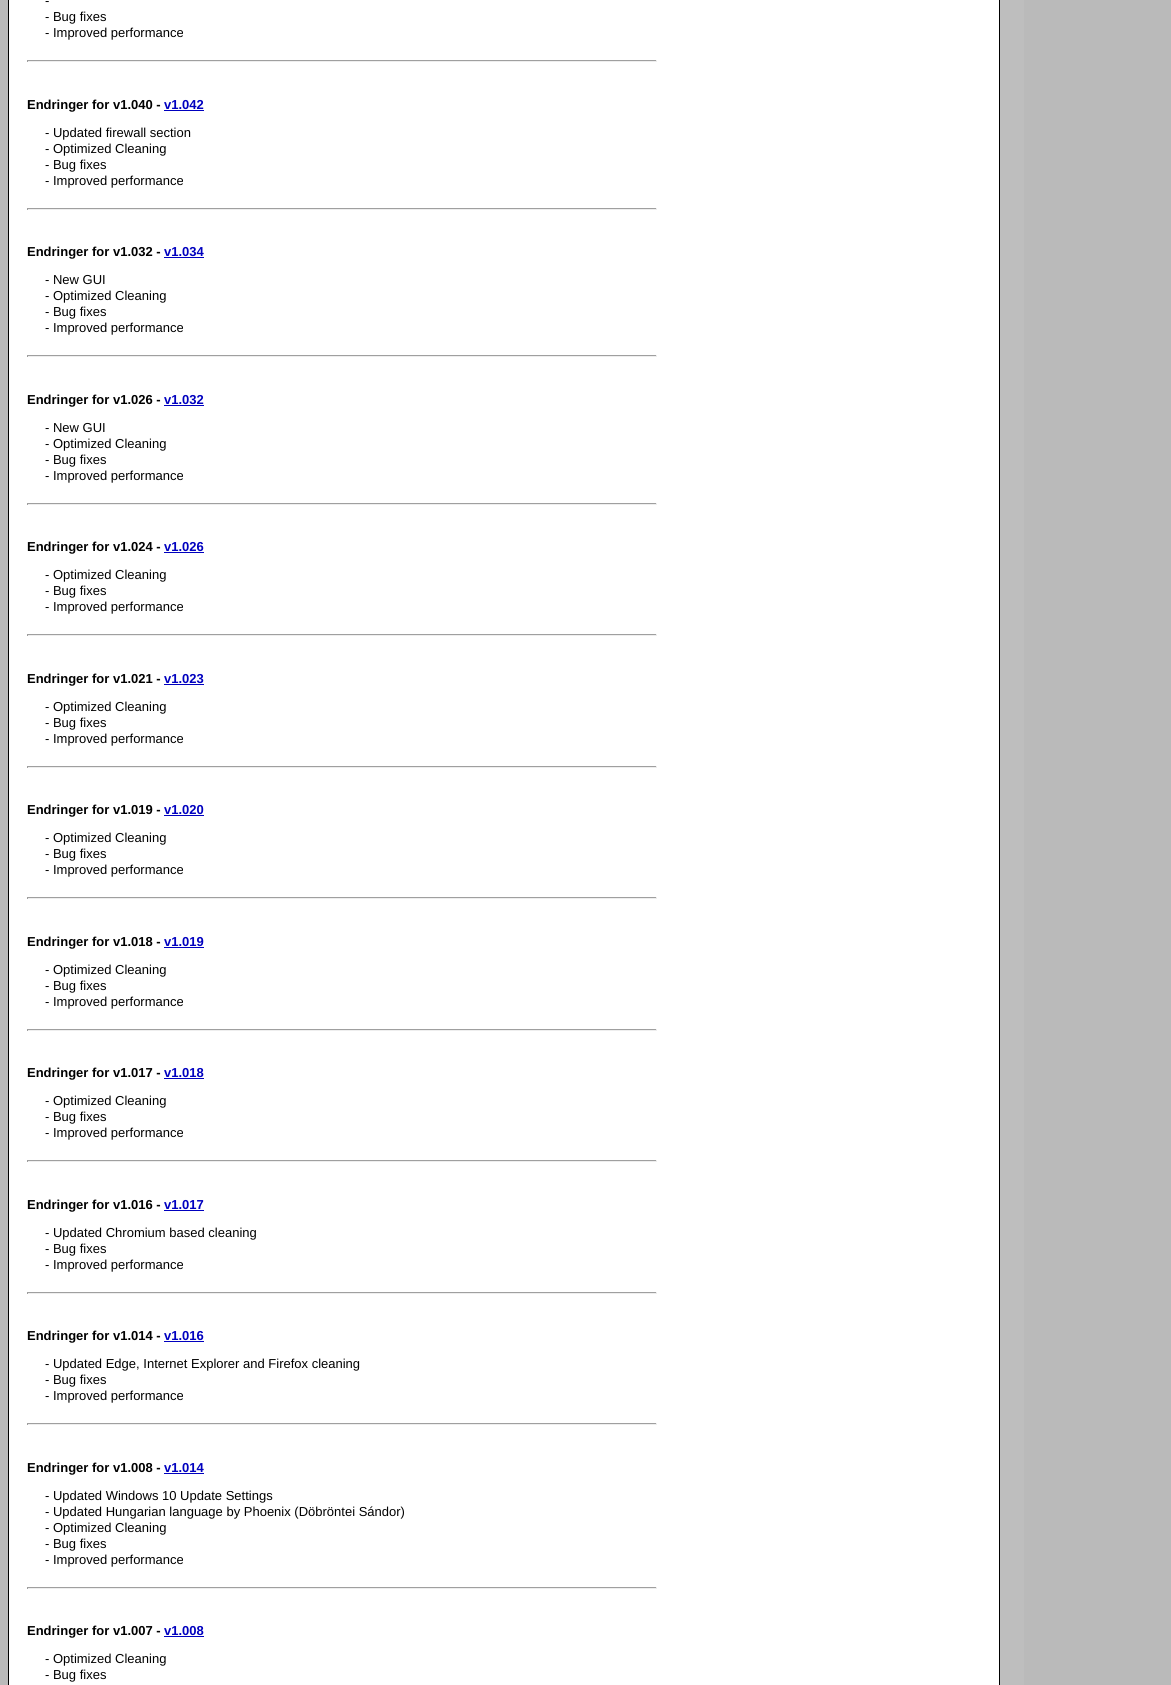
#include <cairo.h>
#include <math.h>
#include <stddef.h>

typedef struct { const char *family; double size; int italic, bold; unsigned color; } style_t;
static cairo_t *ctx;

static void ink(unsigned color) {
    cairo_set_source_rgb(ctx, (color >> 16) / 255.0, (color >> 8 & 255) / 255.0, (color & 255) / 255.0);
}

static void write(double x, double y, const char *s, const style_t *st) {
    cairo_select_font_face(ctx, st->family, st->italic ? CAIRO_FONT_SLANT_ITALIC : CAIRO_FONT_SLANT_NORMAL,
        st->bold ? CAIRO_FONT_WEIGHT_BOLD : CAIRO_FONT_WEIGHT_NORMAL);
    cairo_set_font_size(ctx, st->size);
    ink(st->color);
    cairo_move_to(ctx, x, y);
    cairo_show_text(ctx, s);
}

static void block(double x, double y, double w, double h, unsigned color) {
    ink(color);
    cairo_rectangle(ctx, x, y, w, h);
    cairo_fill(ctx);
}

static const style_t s1 = {"Liberation Sans", 13, 0, 0, 0x000000};
static const style_t s2 = {"Liberation Sans", 13, 0, 1, 0x000000};
static const style_t s3 = {"Liberation Sans", 13, 0, 1, 0x0000bf};

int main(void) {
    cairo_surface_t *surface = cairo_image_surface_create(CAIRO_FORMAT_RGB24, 1171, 1685);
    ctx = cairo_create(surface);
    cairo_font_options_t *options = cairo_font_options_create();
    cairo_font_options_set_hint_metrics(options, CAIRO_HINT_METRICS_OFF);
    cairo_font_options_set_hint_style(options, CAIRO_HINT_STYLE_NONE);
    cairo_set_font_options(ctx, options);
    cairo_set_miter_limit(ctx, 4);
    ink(0xbababa);
    cairo_paint(ctx);
    block(9, 0, 990, 1685, 0xffffff);
    block(999, 0, 1, 1685, 0x000000);
    block(8, 0, 1, 1685, 0x000000);
    write(45, 5, "-", &s1);
    write(45, 21, "- Bug fixes", &s1);
    write(45, 37, "- Improved performance", &s1);
    block(27, 60, 630, 1, 0x9f9f9f);
    block(656, 60, 1, 2, 0xeeeeee);
    block(27, 61, 630, 1, 0xeeeeee);
    block(27, 60, 1, 2, 0x9f9f9f);
    write(27, 109, "Endringer for v1.040 -", &s2);
    write(164, 109, "v1.042", &s3);
    block(164, 110, 40, 1, 0x0000bf);
    write(45, 137, "- Updated firewall section", &s1);
    write(45, 153, "- Optimized Cleaning", &s1);
    write(45, 169, "- Bug fixes", &s1);
    write(45, 185, "- Improved performance", &s1);
    block(27, 208, 630, 1, 0x9f9f9f);
    block(656, 208, 1, 2, 0xeeeeee);
    block(27, 209, 630, 1, 0xeeeeee);
    block(27, 208, 1, 2, 0x9f9f9f);
    write(27, 256, "Endringer for v1.032 -", &s2);
    write(164, 256, "v1.034", &s3);
    block(164, 257, 40, 1, 0x0000bf);
    write(45, 284, "- New GUI", &s1);
    write(45, 300, "- Optimized Cleaning", &s1);
    write(45, 316, "- Bug fixes", &s1);
    write(45, 332, "- Improved performance", &s1);
    block(27, 355, 630, 1, 0x9f9f9f);
    block(656, 355, 1, 2, 0xeeeeee);
    block(27, 356, 630, 1, 0xeeeeee);
    block(27, 355, 1, 2, 0x9f9f9f);
    write(27, 404, "Endringer for v1.026 -", &s2);
    write(164, 404, "v1.032", &s3);
    block(164, 405, 40, 1, 0x0000bf);
    write(45, 432, "- New GUI", &s1);
    write(45, 448, "- Optimized Cleaning", &s1);
    write(45, 464, "- Bug fixes", &s1);
    write(45, 480, "- Improved performance", &s1);
    block(27, 503, 630, 1, 0x9f9f9f);
    block(656, 503, 1, 2, 0xeeeeee);
    block(27, 504, 630, 1, 0xeeeeee);
    block(27, 503, 1, 2, 0x9f9f9f);
    write(27, 551, "Endringer for v1.024 -", &s2);
    write(164, 551, "v1.026", &s3);
    block(164, 552, 40, 1, 0x0000bf);
    write(45, 579, "- Optimized Cleaning", &s1);
    write(45, 595, "- Bug fixes", &s1);
    write(45, 611, "- Improved performance", &s1);
    block(27, 634, 630, 1, 0x9f9f9f);
    block(656, 634, 1, 2, 0xeeeeee);
    block(27, 635, 630, 1, 0xeeeeee);
    block(27, 634, 1, 2, 0x9f9f9f);
    write(27, 683, "Endringer for v1.021 -", &s2);
    write(164, 683, "v1.023", &s3);
    block(164, 684, 40, 1, 0x0000bf);
    write(45, 711, "- Optimized Cleaning", &s1);
    write(45, 727, "- Bug fixes", &s1);
    write(45, 743, "- Improved performance", &s1);
    block(27, 766, 630, 1, 0x9f9f9f);
    block(656, 766, 1, 2, 0xeeeeee);
    block(27, 767, 630, 1, 0xeeeeee);
    block(27, 766, 1, 2, 0x9f9f9f);
    write(27, 814, "Endringer for v1.019 -", &s2);
    write(164, 814, "v1.020", &s3);
    block(164, 815, 40, 1, 0x0000bf);
    write(45, 842, "- Optimized Cleaning", &s1);
    write(45, 858, "- Bug fixes", &s1);
    write(45, 874, "- Improved performance", &s1);
    block(27, 897, 630, 1, 0x9f9f9f);
    block(656, 897, 1, 2, 0xeeeeee);
    block(27, 898, 630, 1, 0xeeeeee);
    block(27, 897, 1, 2, 0x9f9f9f);
    write(27, 946, "Endringer for v1.018 -", &s2);
    write(164, 946, "v1.019", &s3);
    block(164, 947, 40, 1, 0x0000bf);
    write(45, 974, "- Optimized Cleaning", &s1);
    write(45, 990, "- Bug fixes", &s1);
    write(45, 1006, "- Improved performance", &s1);
    block(27, 1029, 630, 1, 0x9f9f9f);
    block(656, 1029, 1, 2, 0xeeeeee);
    block(27, 1030, 630, 1, 0xeeeeee);
    block(27, 1029, 1, 2, 0x9f9f9f);
    write(27, 1077, "Endringer for v1.017 -", &s2);
    write(164, 1077, "v1.018", &s3);
    block(164, 1078, 40, 1, 0x0000bf);
    write(45, 1105, "- Optimized Cleaning", &s1);
    write(45, 1121, "- Bug fixes", &s1);
    write(45, 1137, "- Improved performance", &s1);
    block(27, 1160, 630, 1, 0x9f9f9f);
    block(656, 1160, 1, 2, 0xeeeeee);
    block(27, 1161, 630, 1, 0xeeeeee);
    block(27, 1160, 1, 2, 0x9f9f9f);
    write(27, 1209, "Endringer for v1.016 -", &s2);
    write(164, 1209, "v1.017", &s3);
    block(164, 1210, 40, 1, 0x0000bf);
    write(45, 1237, "- Updated Chromium based cleaning", &s1);
    write(45, 1253, "- Bug fixes", &s1);
    write(45, 1269, "- Improved performance", &s1);
    block(27, 1292, 630, 1, 0x9f9f9f);
    block(656, 1292, 1, 2, 0xeeeeee);
    block(27, 1293, 630, 1, 0xeeeeee);
    block(27, 1292, 1, 2, 0x9f9f9f);
    write(27, 1340, "Endringer for v1.014 -", &s2);
    write(164, 1340, "v1.016", &s3);
    block(164, 1341, 40, 1, 0x0000bf);
    write(45, 1368, "- Updated Edge, Internet Explorer and Firefox cleaning", &s1);
    write(45, 1384, "- Bug fixes", &s1);
    write(45, 1400, "- Improved performance", &s1);
    block(27, 1423, 630, 1, 0x9f9f9f);
    block(656, 1423, 1, 2, 0xeeeeee);
    block(27, 1424, 630, 1, 0xeeeeee);
    block(27, 1423, 1, 2, 0x9f9f9f);
    write(27, 1472, "Endringer for v1.008 -", &s2);
    write(164, 1472, "v1.014", &s3);
    block(164, 1473, 40, 1, 0x0000bf);
    write(45, 1500, "- Updated Windows 10 Update Settings", &s1);
    write(45, 1516, "- Updated Hungarian language by Phoenix (Döbröntei Sándor)", &s1);
    write(45, 1532, "- Optimized Cleaning", &s1);
    write(45, 1548, "- Bug fixes", &s1);
    write(45, 1564, "- Improved performance", &s1);
    block(27, 1587, 630, 1, 0x9f9f9f);
    block(656, 1587, 1, 2, 0xeeeeee);
    block(27, 1588, 630, 1, 0xeeeeee);
    block(27, 1587, 1, 2, 0x9f9f9f);
    write(27, 1635, "Endringer for v1.007 -", &s2);
    write(164, 1635, "v1.008", &s3);
    block(164, 1636, 40, 1, 0x0000bf);
    write(45, 1663, "- Optimized Cleaning", &s1);
    write(45, 1679, "- Bug fixes", &s1);
    block(1000, 0, 24, 1685, 0xbebebe);
    cairo_surface_write_to_png(surface, "screenshot.png");
    cairo_font_options_destroy(options);
    cairo_destroy(ctx);
    cairo_surface_destroy(surface);
    return 0;
}
